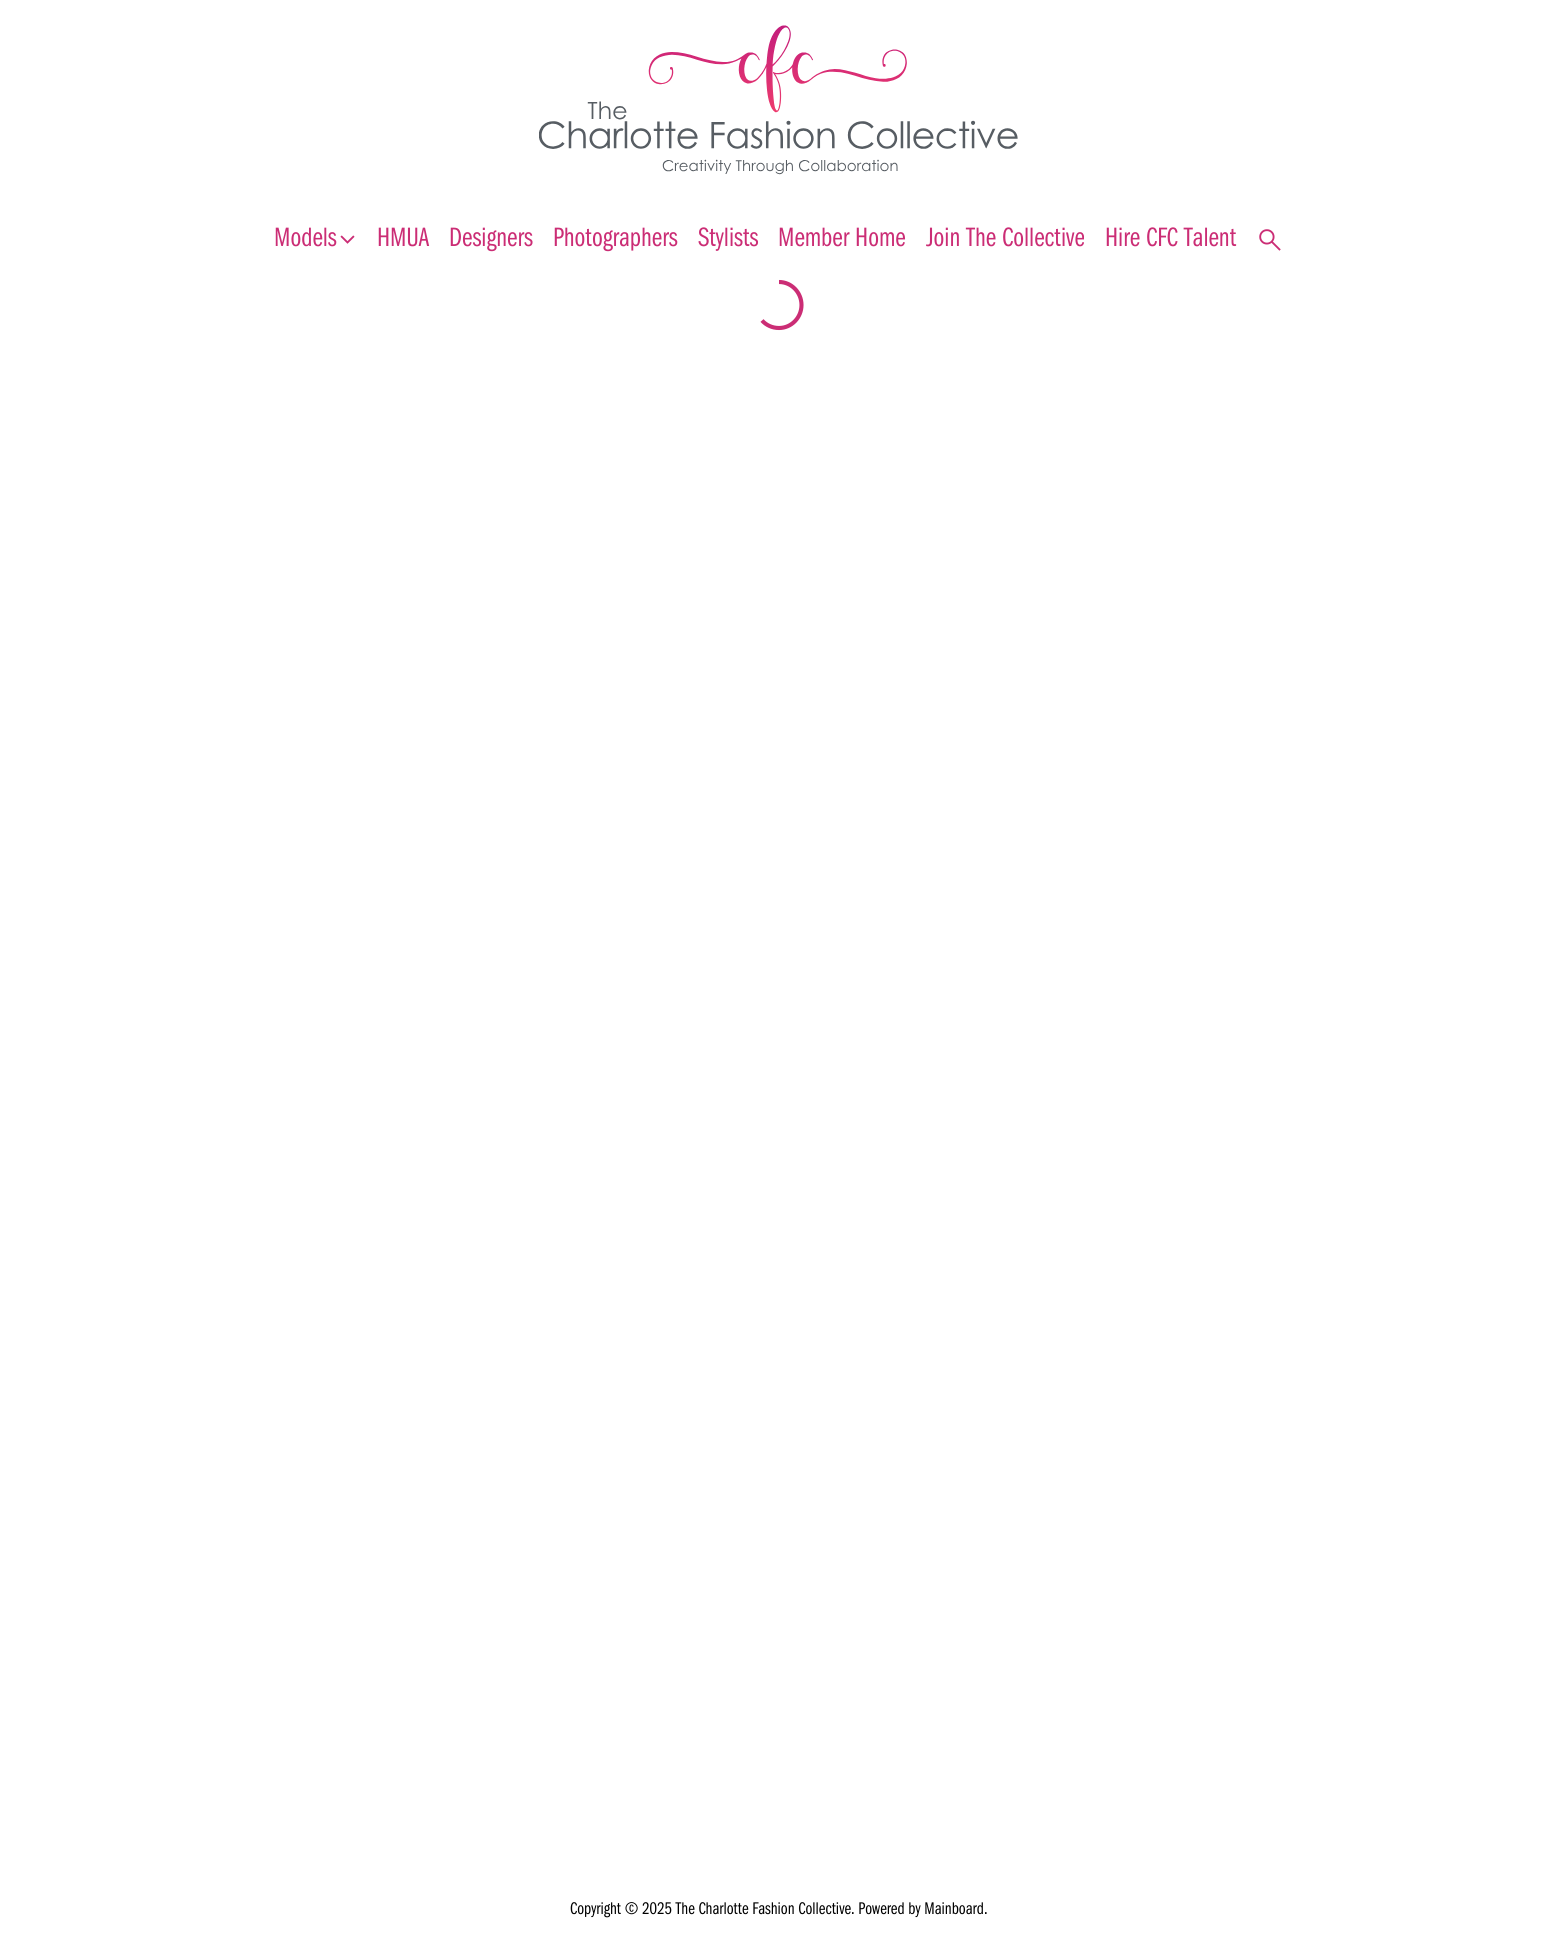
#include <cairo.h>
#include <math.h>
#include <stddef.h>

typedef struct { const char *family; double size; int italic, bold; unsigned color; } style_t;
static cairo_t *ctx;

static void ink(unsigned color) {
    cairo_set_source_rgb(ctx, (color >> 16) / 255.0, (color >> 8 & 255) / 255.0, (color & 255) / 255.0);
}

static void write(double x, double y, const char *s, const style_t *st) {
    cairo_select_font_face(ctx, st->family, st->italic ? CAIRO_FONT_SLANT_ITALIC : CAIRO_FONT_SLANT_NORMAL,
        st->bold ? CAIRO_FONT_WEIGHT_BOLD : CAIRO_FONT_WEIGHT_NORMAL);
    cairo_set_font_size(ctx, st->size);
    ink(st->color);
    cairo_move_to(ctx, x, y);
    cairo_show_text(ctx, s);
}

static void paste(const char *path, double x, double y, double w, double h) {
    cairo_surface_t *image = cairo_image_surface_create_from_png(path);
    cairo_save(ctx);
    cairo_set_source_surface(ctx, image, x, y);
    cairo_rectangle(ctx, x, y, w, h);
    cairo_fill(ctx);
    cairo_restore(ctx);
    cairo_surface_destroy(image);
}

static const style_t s1 = {"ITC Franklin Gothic", 27.5, 0, 0, 0xcb2d75};
static const style_t s2 = {"ITC Franklin Gothic", 17.5, 0, 0, 0x000000};

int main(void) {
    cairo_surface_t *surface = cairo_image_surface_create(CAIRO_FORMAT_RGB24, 1557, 1959);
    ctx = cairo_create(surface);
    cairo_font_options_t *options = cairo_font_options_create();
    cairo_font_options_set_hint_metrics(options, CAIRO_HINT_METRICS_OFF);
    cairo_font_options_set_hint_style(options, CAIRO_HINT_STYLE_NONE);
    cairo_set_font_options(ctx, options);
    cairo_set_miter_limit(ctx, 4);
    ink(0xffffff);
    cairo_paint(ctx);
    paste("pic1.png", 539, 25, 479, 150);
    write(274, 246, "Models", &s1);
    paste("pic2.png", 340, 235, 15, 9);
    write(377, 246, "HMUA", &s1);
    write(449, 246, "Designers", &s1);
    write(553, 246, "Photographers", &s1);
    write(698, 246, "Stylists", &s1);
    write(778, 246, "Member Home", &s1);
    write(926, 246, "Join The Collective", &s1);
    write(1105, 246, "Hire CFC Talent", &s1);
    paste("pic3.png", 1259, 229, 22, 22);
    cairo_new_path(ctx);
    cairo_move_to(ctx, 779, 282);
    cairo_curve_to(ctx, 791.5, 282, 801.5, 292.5, 801.5, 305);
    cairo_curve_to(ctx, 801.5, 317.5, 791.5, 328, 779, 328);
    cairo_curve_to(ctx, 772, 328, 766, 325, 762, 320.5);
    cairo_set_line_width(ctx, 4.1);
    cairo_stroke(ctx);
    write(570, 1914, "Copyright © 2025 The Charlotte Fashion Collective. Powered by Mainboard.", &s2);
    cairo_surface_write_to_png(surface, "screenshot.png");
    cairo_font_options_destroy(options);
    cairo_destroy(ctx);
    cairo_surface_destroy(surface);
    return 0;
}
